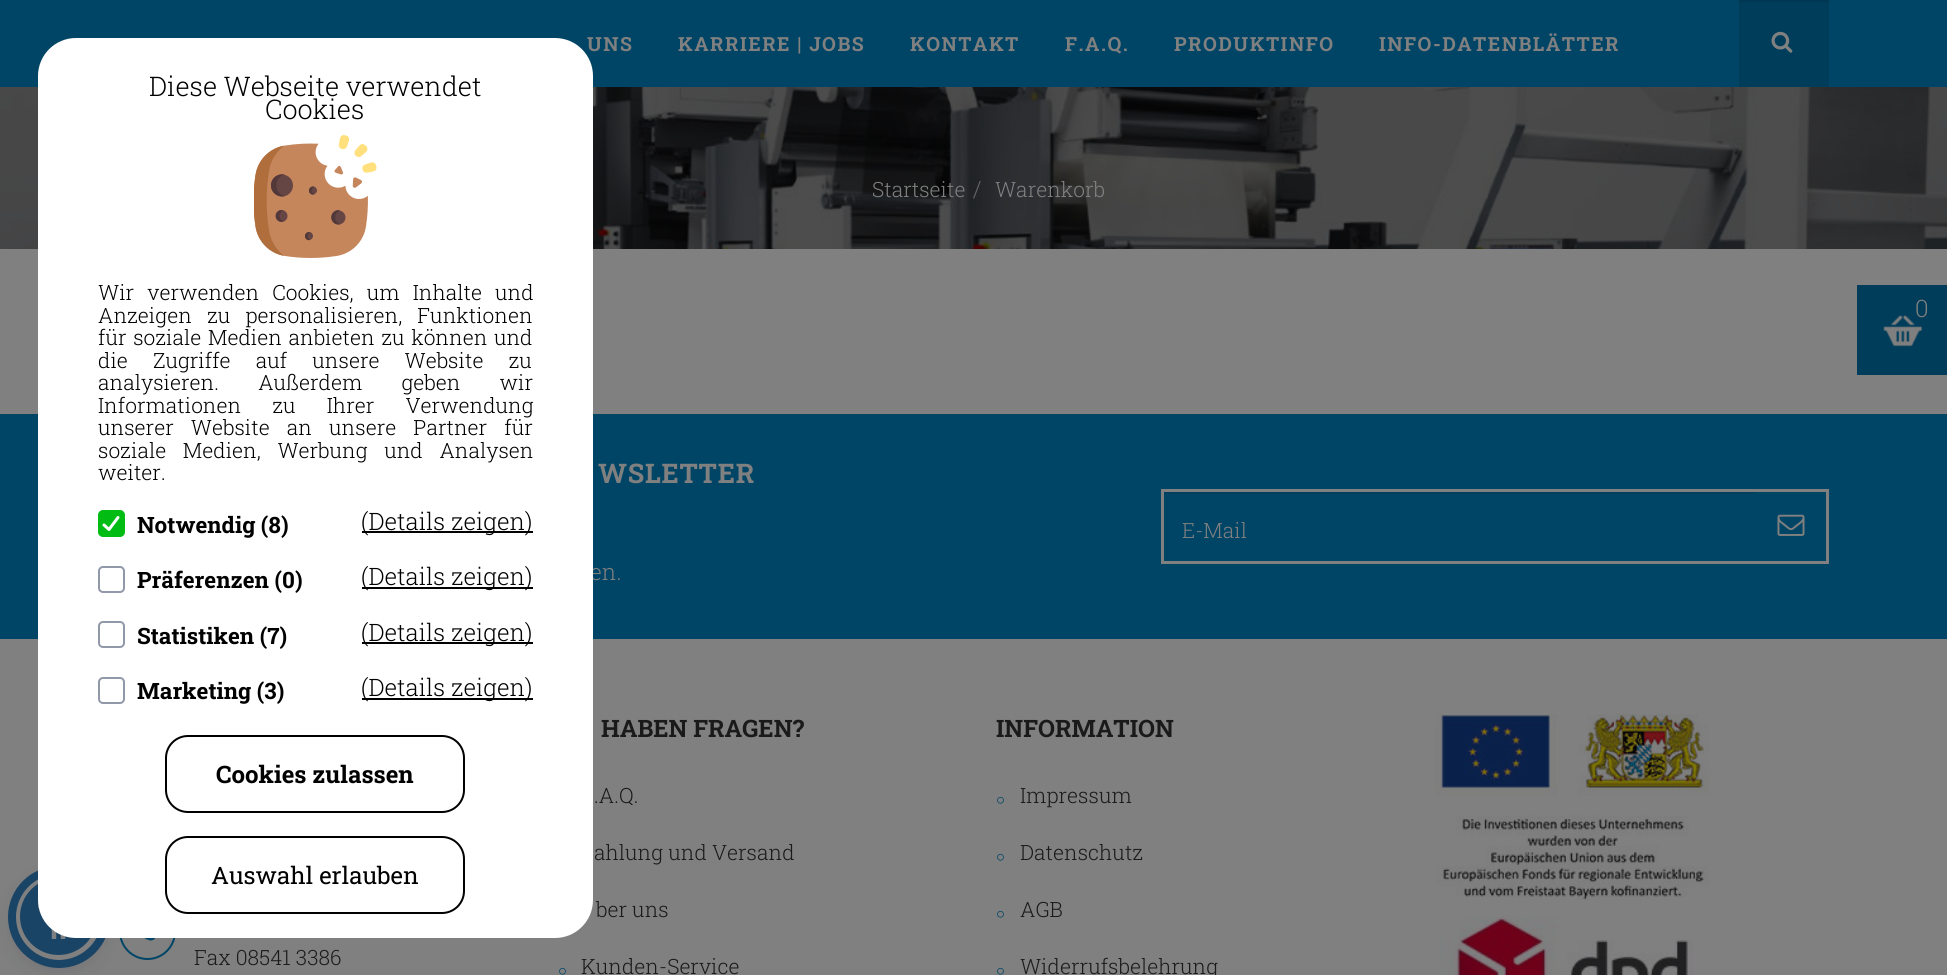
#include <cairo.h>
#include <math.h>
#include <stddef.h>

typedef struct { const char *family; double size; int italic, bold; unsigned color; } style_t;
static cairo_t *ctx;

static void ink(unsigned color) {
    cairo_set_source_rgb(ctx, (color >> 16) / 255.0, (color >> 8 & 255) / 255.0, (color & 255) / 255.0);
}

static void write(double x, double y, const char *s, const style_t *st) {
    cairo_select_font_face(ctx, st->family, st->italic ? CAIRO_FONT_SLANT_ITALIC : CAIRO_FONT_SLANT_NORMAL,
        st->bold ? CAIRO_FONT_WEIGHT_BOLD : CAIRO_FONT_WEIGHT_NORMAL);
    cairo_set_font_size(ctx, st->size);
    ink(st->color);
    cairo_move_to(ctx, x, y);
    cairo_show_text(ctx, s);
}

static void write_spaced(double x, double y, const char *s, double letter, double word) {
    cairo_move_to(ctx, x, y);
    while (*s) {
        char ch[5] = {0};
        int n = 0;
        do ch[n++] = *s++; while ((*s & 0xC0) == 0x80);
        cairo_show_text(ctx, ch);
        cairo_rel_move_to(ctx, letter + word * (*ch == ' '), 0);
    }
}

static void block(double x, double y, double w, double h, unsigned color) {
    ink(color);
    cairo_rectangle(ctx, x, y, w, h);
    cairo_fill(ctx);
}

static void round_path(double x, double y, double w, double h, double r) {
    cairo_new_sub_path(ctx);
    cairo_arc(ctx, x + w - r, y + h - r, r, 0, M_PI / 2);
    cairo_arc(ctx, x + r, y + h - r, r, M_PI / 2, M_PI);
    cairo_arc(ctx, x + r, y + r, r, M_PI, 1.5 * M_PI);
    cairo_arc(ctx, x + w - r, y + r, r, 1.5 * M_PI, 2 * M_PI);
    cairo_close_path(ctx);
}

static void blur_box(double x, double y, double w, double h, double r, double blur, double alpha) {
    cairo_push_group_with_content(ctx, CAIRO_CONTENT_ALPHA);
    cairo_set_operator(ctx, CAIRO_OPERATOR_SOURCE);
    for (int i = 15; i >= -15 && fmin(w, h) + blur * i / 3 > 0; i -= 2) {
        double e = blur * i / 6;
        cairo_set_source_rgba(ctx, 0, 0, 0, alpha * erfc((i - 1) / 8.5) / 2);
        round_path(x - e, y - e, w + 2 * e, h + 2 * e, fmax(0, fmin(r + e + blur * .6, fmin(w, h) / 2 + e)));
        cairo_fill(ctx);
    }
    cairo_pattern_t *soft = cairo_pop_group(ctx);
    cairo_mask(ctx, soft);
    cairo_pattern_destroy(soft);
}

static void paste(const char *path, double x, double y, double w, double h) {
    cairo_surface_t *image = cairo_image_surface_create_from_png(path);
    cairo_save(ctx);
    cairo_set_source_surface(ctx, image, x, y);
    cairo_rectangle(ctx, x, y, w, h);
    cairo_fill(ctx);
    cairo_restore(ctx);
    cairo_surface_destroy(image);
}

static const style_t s1 = {"Roboto Slab Light", 24, 0, 0, 0x808080};
static const style_t s2 = {"Roboto Slab Light", 21, 0, 0, 0x808080};
static const style_t s3 = {"Roboto Slab Light", 22.5, 0, 0, 0x666666};
static const style_t s4 = {"Roboto Slab Light", 22.5, 0, 0, 0x808080};
static const style_t s5 = {"Roboto Slab Light", 21, 0, 0, 0x1a1a1a};
static const style_t s6 = {"Roboto Slab", 24, 0, 1, 0x1a1a1a};
static const style_t s7 = {"Roboto Slab Light", 27, 0, 0, 0x000000};
static const style_t s8 = {"Roboto Slab Light", 21, 0, 0, 0x000000};
static const style_t s9 = {"Roboto Slab", 22.5, 0, 1, 0x000000};
static const style_t s10 = {"Roboto Slab Light", 24, 0, 0, 0x000000};
static const style_t s11 = {"Roboto Slab", 24, 0, 1, 0x000000};
static const style_t s12 = {"Roboto Slab", 24, 0, 0, 0x000000};

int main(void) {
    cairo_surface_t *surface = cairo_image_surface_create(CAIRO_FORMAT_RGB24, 1947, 975);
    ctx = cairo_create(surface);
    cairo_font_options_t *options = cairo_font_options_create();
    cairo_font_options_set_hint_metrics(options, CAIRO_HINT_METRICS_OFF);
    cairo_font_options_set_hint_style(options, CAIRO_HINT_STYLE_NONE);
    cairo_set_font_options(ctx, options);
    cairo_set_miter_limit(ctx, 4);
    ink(0x808080);
    cairo_paint(ctx);
    block(0, 0, 1947, 87, 0x004566);
    cairo_select_font_face(ctx, "Roboto Slab", CAIRO_FONT_SLANT_NORMAL, CAIRO_FONT_WEIGHT_BOLD);
    cairo_set_font_size(ctx, 19.5);
    ink(0x808080);
    write_spaced(587, 51, "UNS", 1.5, 0);
    write_spaced(678, 51, "KARRIERE | JOBS", 1.5, 0);
    write_spaced(910, 51, "KONTAKT", 1.5, 0);
    write_spaced(1065, 51, "F.A.Q.", 1.5, 0);
    write_spaced(1174, 51, "PRODUKTINFO", 1.5, 0);
    write_spaced(1379, 51, "INFO-DATENBLÄTTER", 1.5, 0);
    block(1739, 2, 90, 85, 0x003d5a);
    block(1739, 0, 90, 2, 0x003853);
    paste("pic1.png", 1771, 31, 22, 22);
    block(1857, 285, 90, 90, 0x003d5a);
    paste("pic2.png", 1883, 315, 39, 32);
    write(1915, 317, "0", &s1);
    paste("pic3.png", 0, 87, 1947, 162);
    write(872, 197, "Startseite", &s2);
    write(973, 197, "/", &s3);
    write(995, 197, "Warenkorb", &s2);
    block(0, 414, 1947, 225, 0x004566);
    cairo_select_font_face(ctx, "Roboto Slab", CAIRO_FONT_SLANT_NORMAL, CAIRO_FONT_WEIGHT_BOLD);
    cairo_set_font_size(ctx, 27);
    ink(0x808080);
    write_spaced(598, 483, "WSLETTER", 0.75, 0);
    write(590, 580, "en.", &s4);
    cairo_rectangle(ctx, 1162.5, 490.5, 665, 72);
    cairo_set_line_width(ctx, 3);
    cairo_stroke(ctx);
    block(1164, 492, 591, 2, 0x00405f);
    write(1182, 538, "E-Mail", &s2);
    paste("pic4.png", 1777, 514, 28, 22);
    cairo_arc(ctx, 147.5, 931.5, 27.5, 0, 2 * M_PI);
    ink(0x004566);
    cairo_set_line_width(ctx, 2);
    cairo_stroke(ctx);
    paste("pic5.png", 144, 938, 11, 3);
    write(194, 965, "Fax 08541 3386", &s5);
    write(601, 737, "HABEN FRAGEN?", &s6);
    write(594, 803, ".A.Q.", &s5);
    write(594, 860, "ahlung und Versand", &s5);
    write(596, 917, "ber uns", &s5);
    paste("pic6.png", 559, 967, 7, 8);
    write(581, 974, "Kunden-Service", &s5);
    write(996, 737, "INFORMATION", &s6);
    paste("pic6.png", 997, 796, 7, 8);
    write(1020, 803, "Impressum", &s5);
    paste("pic6.png", 997, 853, 7, 8);
    write(1020, 860, "Datenschutz", &s5);
    paste("pic6.png", 997, 910, 7, 8);
    write(1020, 917, "AGB", &s5);
    paste("pic6.png", 997, 967, 7, 8);
    write(1020, 974, "Widerrufsbelehrung", &s5);
    paste("pic7.png", 1435, 714, 274, 186);
    paste("pic8.png", 1440, 916, 254, 59);
    ink(0x2f324a);
    blur_box(15, 876, 87, 87, 43.5, 3, 0.2);
    ink(0x131631);
    blur_box(15, 881, 87, 87, 43.5, 11, 0.15);
    ink(0x1a4465);
    cairo_arc(ctx, 58.5, 916.5, 41, 0, 2 * M_PI);
    cairo_fill_preserve(ctx);
    ink(0x808080);
    cairo_set_line_width(ctx, 5);
    cairo_stroke(ctx);
    cairo_arc(ctx, 59, 917, 47, 0, 2 * M_PI);
    ink(0x1a4465);
    cairo_set_line_width(ctx, 8);
    cairo_stroke(ctx);
    paste("pic10.png", 38, 904, 28, 35);
    ink(0xffffff);
    round_path(38, 38, 555, 900, 38);
    cairo_fill(ctx);
    cairo_new_path(ctx);
    cairo_move_to(ctx, 105, 53);
    cairo_line_to(ctx, 525, 53);
    cairo_curve_to(ctx, 541.5, 53, 555, 66.5, 555, 83);
    cairo_line_to(ctx, 555, 938);
    cairo_line_to(ctx, 75, 938);
    cairo_line_to(ctx, 75, 83);
    cairo_curve_to(ctx, 75, 66.5, 88.5, 53, 105, 53);
    cairo_close_path(ctx);
    cairo_fill(ctx);
    write(149, 96, "Diese Webseite verwendet", &s7);
    write(265, 119, "Cookies", &s7);
    paste("pic9.png", 254, 135, 123, 123);
    cairo_set_font_size(ctx, 21);
    write_spaced(98, 300, "Wir verwenden Cookies, um Inhalte und", 0, 8);
    write_spaced(98, 323, "Anzeigen zu personalisieren, Funktionen", 0, 10);
    write_spaced(98, 345, "für soziale Medien anbieten zu können und", 0, 1.5);
    write_spaced(98, 368, "die Zugriffe auf unsere Website zu", 0, 20);
    write_spaced(98, 390, "analysieren. Außerdem geben wir", 0, 34);
    write_spaced(98, 413, "Informationen zu Ihrer Verwendung", 0, 26);
    write_spaced(98, 435, "unserer Website an unsere Partner für", 0, 12);
    write_spaced(98, 458, "soziale Medien, Werbung und Analysen", 0, 11.5);
    write(98, 480, "weiter.", &s8);
    ink(0x00bc13);
    round_path(99, 511, 25, 25, 4);
    cairo_fill_preserve(ctx);
    cairo_set_line_width(ctx, 2);
    cairo_stroke(ctx);
    cairo_new_path(ctx);
    cairo_move_to(ctx, 104, 525);
    cairo_line_to(ctx, 109, 529.5);
    cairo_line_to(ctx, 118, 517.5);
    ink(0xffffff);
    cairo_set_line_width(ctx, 3);
    cairo_set_line_cap(ctx, CAIRO_LINE_CAP_ROUND);
    cairo_set_line_join(ctx, CAIRO_LINE_JOIN_ROUND);
    cairo_stroke(ctx);
    write(137, 533, "Notwendig (8)", &s9);
    block(362, 531, 171, 2, 0x000000);
    write(361, 530, "(Details zeigen)", &s10);
    round_path(99, 567, 25, 25, 4);
    ink(0x9098a9);
    cairo_set_line_width(ctx, 2);
    cairo_set_line_cap(ctx, CAIRO_LINE_CAP_BUTT);
    cairo_set_line_join(ctx, CAIRO_LINE_JOIN_MITER);
    cairo_stroke(ctx);
    write(137, 588, "Präferenzen (0)", &s9);
    block(362, 587, 171, 2, 0x000000);
    write(361, 585, "(Details zeigen)", &s10);
    round_path(99, 622, 25, 25, 4);
    ink(0x9098a9);
    cairo_stroke(ctx);
    write(137, 644, "Statistiken (7)", &s9);
    block(362, 642, 171, 2, 0x000000);
    write(361, 641, "(Details zeigen)", &s10);
    round_path(99, 678, 25, 25, 4);
    ink(0x9098a9);
    cairo_stroke(ctx);
    write(137, 699, "Marketing (3)", &s9);
    block(362, 698, 171, 2, 0x000000);
    write(361, 696, "(Details zeigen)", &s10);
    round_path(166, 736, 298, 76, 22);
    cairo_stroke(ctx);
    write(216, 783, "Cookies zulassen", &s11);
    round_path(166, 837, 298, 76, 22);
    cairo_stroke(ctx);
    write(211, 884, "Auswahl erlauben", &s12);
    cairo_surface_write_to_png(surface, "screenshot.png");
    cairo_font_options_destroy(options);
    cairo_destroy(ctx);
    cairo_surface_destroy(surface);
    return 0;
}
